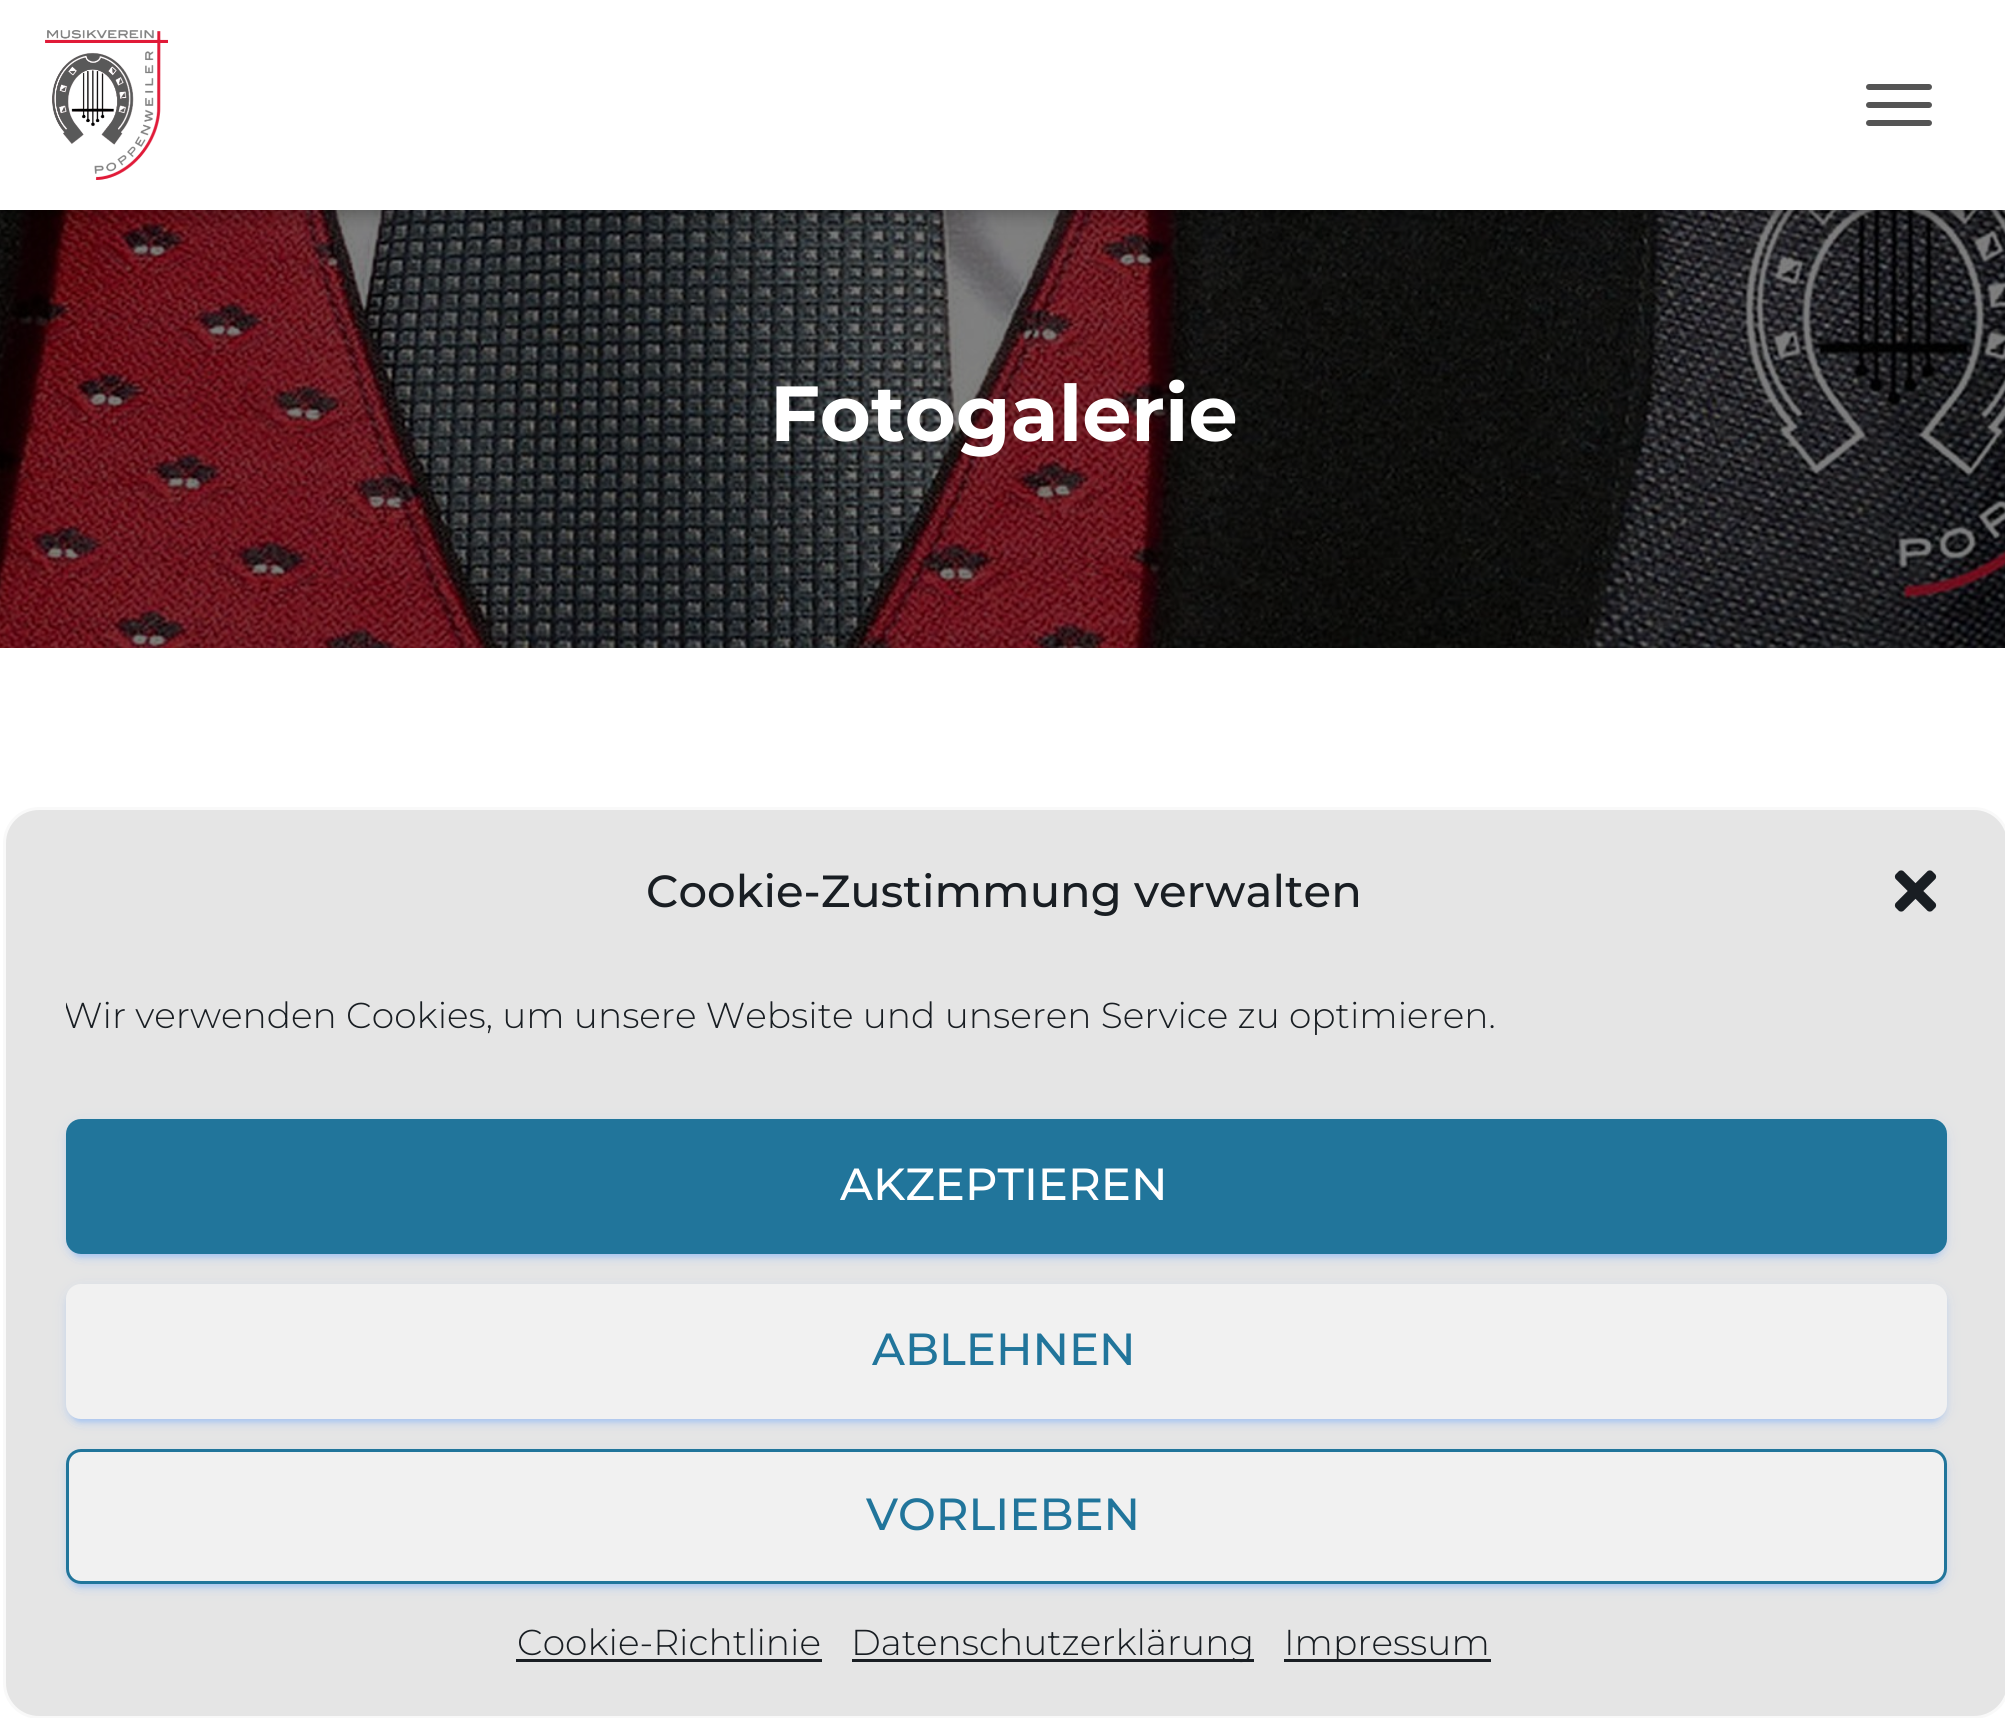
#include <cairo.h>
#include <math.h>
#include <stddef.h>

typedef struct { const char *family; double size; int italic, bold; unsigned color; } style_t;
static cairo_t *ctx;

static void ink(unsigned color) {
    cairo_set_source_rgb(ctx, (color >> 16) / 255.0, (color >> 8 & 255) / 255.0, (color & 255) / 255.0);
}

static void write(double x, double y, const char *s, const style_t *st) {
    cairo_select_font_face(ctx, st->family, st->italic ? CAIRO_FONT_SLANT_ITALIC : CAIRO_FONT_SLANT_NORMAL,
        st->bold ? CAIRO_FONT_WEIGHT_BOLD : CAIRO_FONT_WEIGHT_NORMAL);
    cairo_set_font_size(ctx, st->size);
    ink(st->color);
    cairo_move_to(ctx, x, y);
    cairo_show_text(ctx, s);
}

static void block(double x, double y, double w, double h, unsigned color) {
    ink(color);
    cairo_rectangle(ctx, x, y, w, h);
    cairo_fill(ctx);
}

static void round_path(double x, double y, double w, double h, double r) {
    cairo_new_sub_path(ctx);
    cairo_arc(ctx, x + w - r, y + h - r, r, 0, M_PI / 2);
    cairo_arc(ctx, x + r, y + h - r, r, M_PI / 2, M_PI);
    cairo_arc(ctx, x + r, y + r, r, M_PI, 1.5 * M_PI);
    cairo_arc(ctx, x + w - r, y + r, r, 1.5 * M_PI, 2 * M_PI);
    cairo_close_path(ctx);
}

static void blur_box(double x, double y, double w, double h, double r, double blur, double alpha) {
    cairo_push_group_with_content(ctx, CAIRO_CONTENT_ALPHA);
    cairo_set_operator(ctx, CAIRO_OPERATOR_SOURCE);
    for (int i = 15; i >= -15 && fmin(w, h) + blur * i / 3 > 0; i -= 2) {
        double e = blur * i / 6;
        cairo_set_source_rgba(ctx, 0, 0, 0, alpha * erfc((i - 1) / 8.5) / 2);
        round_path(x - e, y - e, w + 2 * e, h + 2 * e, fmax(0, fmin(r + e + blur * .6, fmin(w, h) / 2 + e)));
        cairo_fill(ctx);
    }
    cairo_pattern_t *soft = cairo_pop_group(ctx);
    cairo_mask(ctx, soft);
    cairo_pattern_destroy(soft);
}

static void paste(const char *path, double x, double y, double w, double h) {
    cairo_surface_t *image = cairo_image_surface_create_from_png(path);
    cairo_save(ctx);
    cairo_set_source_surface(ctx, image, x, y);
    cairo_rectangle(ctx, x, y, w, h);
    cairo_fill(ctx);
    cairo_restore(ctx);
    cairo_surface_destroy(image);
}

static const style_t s1 = {"Montserrat Thin", 78, 0, 0, 0xffffff};
static const style_t s2 = {"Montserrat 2 Thin", 45, 0, 0, 0x191e23};
static const style_t s3 = {"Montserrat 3 Thin", 36, 0, 0, 0x191e23};
static const style_t s4 = {"Montserrat 2 Thin", 45, 0, 0, 0xffffff};
static const style_t s5 = {"Montserrat 2 Thin", 45, 0, 0, 0x21759b};

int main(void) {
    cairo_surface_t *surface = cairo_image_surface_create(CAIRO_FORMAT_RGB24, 2005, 1718);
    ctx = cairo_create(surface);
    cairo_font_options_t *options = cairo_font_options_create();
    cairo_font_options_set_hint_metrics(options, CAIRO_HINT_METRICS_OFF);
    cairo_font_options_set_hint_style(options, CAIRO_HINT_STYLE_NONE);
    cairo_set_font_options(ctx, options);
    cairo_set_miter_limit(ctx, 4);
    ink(0xffffff);
    cairo_paint(ctx);
    paste("pic2.png", 0, 210, 2005, 438);
    ink(0x000000);
    blur_box(6, 18, 1995, 198, 0, 7.5, 0.1);
    blur_box(0, 3, 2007, 210, 0, 15, 0.12);
    blur_box(18, 21, 1971, 174, 0, 15, 0.42);
    block(0, 0, 2005, 210, 0xffffff);
    paste("pic1.png", 45, 30, 123, 150);
    ink(0x555555);
    round_path(1866, 84, 66, 6, 3);
    cairo_fill(ctx);
    round_path(1866, 102, 66, 6, 3);
    cairo_fill(ctx);
    round_path(1866, 120, 66, 6, 3);
    cairo_fill(ctx);
    write(770, 441, "Fotogalerie", &s1);
    ink(0xe5e5e5);
    round_path(4.5, 808.5, 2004, 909, 34.5);
    cairo_fill_preserve(ctx);
    ink(0xf9f9f9);
    cairo_set_line_width(ctx, 3);
    cairo_stroke(ctx);
    write(646, 907, "Cookie-Zustimmung verwalten", &s2);
    paste("pic3.png", 1894, 870, 43, 42);
    cairo_save(ctx);
    cairo_rectangle(ctx, 66, 990, 1881, 69);
    cairo_clip(ctx);
    write(63, 1028, "Wir verwenden Cookies, um unsere Website und unseren Service zu optimieren.", &s3);
    cairo_restore(ctx);
    cairo_save(ctx);
    cairo_set_fill_rule(ctx, CAIRO_FILL_RULE_EVEN_ODD);
    cairo_new_path(ctx);
    cairo_move_to(ctx, 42, 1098);
    cairo_line_to(ctx, 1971, 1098);
    cairo_line_to(ctx, 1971, 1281);
    cairo_line_to(ctx, 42, 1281);
    cairo_close_path(ctx);
    cairo_move_to(ctx, 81, 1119);
    cairo_line_to(ctx, 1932, 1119);
    cairo_curve_to(ctx, 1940.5, 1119, 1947, 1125.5, 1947, 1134);
    cairo_line_to(ctx, 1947, 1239);
    cairo_curve_to(ctx, 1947, 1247.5, 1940.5, 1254, 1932, 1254);
    cairo_line_to(ctx, 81, 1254);
    cairo_curve_to(ctx, 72.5, 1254, 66, 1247.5, 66, 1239);
    cairo_line_to(ctx, 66, 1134);
    cairo_curve_to(ctx, 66, 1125.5, 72.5, 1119, 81, 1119);
    cairo_close_path(ctx);
    cairo_clip(ctx);
    ink(0x569aff);
    blur_box(66, 1122, 1881, 135, 15, 7.5, 0.12);
    cairo_restore(ctx);
    ink(0x569aff);
    blur_box(72, 1134, 1869, 123, 9, 1.5, 0.2);
    blur_box(66, 1125, 1881, 135, 15, 3, 0.14);
    ink(0x21759b);
    round_path(67.5, 1120.5, 1878, 132, 13.5);
    cairo_fill_preserve(ctx);
    cairo_stroke(ctx);
    write(840, 1200, "AKZEPTIEREN", &s4);
    cairo_save(ctx);
    cairo_set_fill_rule(ctx, CAIRO_FILL_RULE_EVEN_ODD);
    cairo_new_path(ctx);
    cairo_move_to(ctx, 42, 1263);
    cairo_line_to(ctx, 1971, 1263);
    cairo_line_to(ctx, 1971, 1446);
    cairo_line_to(ctx, 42, 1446);
    cairo_close_path(ctx);
    cairo_move_to(ctx, 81, 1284);
    cairo_line_to(ctx, 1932, 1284);
    cairo_curve_to(ctx, 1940.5, 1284, 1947, 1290.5, 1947, 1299);
    cairo_line_to(ctx, 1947, 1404);
    cairo_curve_to(ctx, 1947, 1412.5, 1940.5, 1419, 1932, 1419);
    cairo_line_to(ctx, 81, 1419);
    cairo_curve_to(ctx, 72.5, 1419, 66, 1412.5, 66, 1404);
    cairo_line_to(ctx, 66, 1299);
    cairo_curve_to(ctx, 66, 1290.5, 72.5, 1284, 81, 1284);
    cairo_close_path(ctx);
    cairo_clip(ctx);
    ink(0x569aff);
    blur_box(66, 1287, 1881, 135, 15, 7.5, 0.12);
    cairo_restore(ctx);
    ink(0x569aff);
    blur_box(72, 1299, 1869, 123, 9, 1.5, 0.2);
    blur_box(66, 1290, 1881, 135, 15, 3, 0.14);
    ink(0xf1f1f1);
    round_path(67.5, 1285.5, 1878, 132, 13.5);
    cairo_fill_preserve(ctx);
    cairo_stroke(ctx);
    write(872, 1365, "ABLEHNEN", &s5);
    cairo_save(ctx);
    cairo_set_fill_rule(ctx, CAIRO_FILL_RULE_EVEN_ODD);
    cairo_new_path(ctx);
    cairo_move_to(ctx, 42, 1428);
    cairo_line_to(ctx, 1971, 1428);
    cairo_line_to(ctx, 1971, 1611);
    cairo_line_to(ctx, 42, 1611);
    cairo_close_path(ctx);
    cairo_move_to(ctx, 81, 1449);
    cairo_line_to(ctx, 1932, 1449);
    cairo_curve_to(ctx, 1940.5, 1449, 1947, 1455.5, 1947, 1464);
    cairo_line_to(ctx, 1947, 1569);
    cairo_curve_to(ctx, 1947, 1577.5, 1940.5, 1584, 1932, 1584);
    cairo_line_to(ctx, 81, 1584);
    cairo_curve_to(ctx, 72.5, 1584, 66, 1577.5, 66, 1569);
    cairo_line_to(ctx, 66, 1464);
    cairo_curve_to(ctx, 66, 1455.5, 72.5, 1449, 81, 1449);
    cairo_close_path(ctx);
    cairo_clip(ctx);
    ink(0x569aff);
    blur_box(66, 1452, 1881, 135, 15, 7.5, 0.12);
    cairo_restore(ctx);
    ink(0x569aff);
    blur_box(72, 1464, 1869, 123, 9, 1.5, 0.2);
    blur_box(66, 1455, 1881, 135, 15, 3, 0.14);
    ink(0xf1f1f1);
    round_path(67.5, 1450.5, 1878, 132, 13.5);
    cairo_fill_preserve(ctx);
    ink(0x21759b);
    cairo_stroke(ctx);
    write(866, 1530, "VORLIEBEN", &s5);
    write(517, 1655, "Cookie-Richtlinie", &s3);
    block(516, 1659, 306, 3, 0x191e23);
    block(852, 1659, 402, 3, 0x191e23);
    write(851, 1655, "Datenschutzerklärung", &s3);
    block(1284, 1659, 207, 3, 0x191e23);
    write(1284, 1655, "Impressum", &s3);
    cairo_surface_write_to_png(surface, "screenshot.png");
    cairo_font_options_destroy(options);
    cairo_destroy(ctx);
    cairo_surface_destroy(surface);
    return 0;
}
